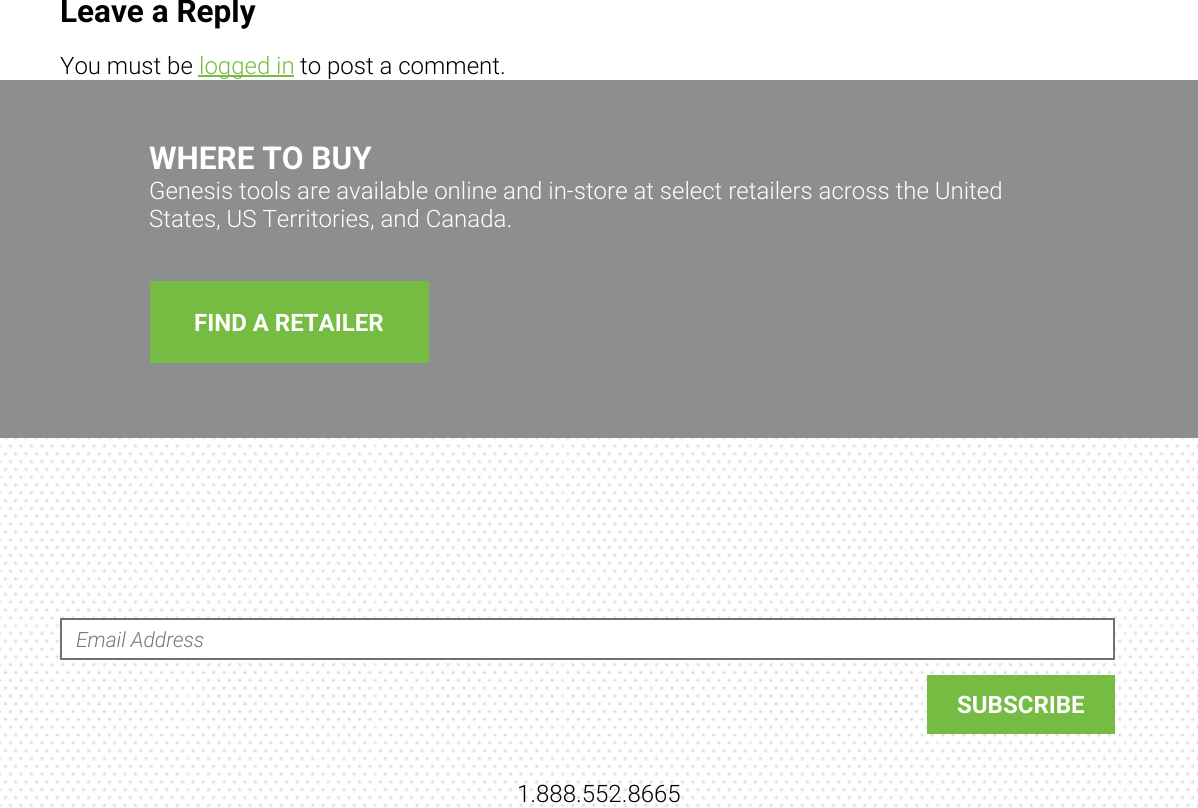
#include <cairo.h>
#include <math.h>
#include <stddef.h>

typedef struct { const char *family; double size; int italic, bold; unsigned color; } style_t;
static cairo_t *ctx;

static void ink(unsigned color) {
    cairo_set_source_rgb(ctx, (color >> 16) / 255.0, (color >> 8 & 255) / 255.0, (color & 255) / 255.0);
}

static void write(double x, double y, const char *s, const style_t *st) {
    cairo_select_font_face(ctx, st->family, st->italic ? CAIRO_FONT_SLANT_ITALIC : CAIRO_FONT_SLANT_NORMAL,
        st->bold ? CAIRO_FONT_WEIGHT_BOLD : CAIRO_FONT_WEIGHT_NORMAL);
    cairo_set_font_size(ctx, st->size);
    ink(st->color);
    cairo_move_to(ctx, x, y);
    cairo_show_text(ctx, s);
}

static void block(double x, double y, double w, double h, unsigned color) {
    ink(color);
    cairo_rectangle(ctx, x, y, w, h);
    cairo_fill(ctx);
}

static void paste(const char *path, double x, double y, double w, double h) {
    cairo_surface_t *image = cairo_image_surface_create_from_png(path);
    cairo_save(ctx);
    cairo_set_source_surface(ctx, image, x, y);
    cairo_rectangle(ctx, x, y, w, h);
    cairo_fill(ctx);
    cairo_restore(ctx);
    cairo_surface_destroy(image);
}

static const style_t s1 = {"Roboto", 31.5, 0, 1, 0x000000};
static const style_t s2 = {"Roboto Light", 24, 0, 0, 0x000000};
static const style_t s3 = {"Roboto Light", 24, 0, 0, 0x76bc43};
static const style_t s4 = {"Roboto", 31.5, 0, 1, 0xffffff};
static const style_t s5 = {"Roboto Light", 24, 0, 0, 0xffffff};
static const style_t s6 = {"Roboto", 24, 0, 1, 0xffffff};
static const style_t s7 = {"Roboto Light", 21, 1, 0, 0x757575};

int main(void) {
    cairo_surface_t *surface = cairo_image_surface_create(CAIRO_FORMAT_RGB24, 1198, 808);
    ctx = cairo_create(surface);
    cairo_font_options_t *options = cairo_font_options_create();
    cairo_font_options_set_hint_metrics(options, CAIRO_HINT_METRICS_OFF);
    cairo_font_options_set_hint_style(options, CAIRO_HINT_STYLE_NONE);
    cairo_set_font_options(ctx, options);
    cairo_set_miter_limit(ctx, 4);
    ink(0xffffff);
    cairo_paint(ctx);
    write(60, 22, "Leave a Reply", &s1);
    write(60, 74, "You must be", &s2);
    block(198, 75, 96, 2, 0x76bc43);
    write(199, 74, "logged in", &s3);
    write(300, 74, "to post a comment.", &s2);
    block(0, 80, 1198, 358, 0x8d8e8f);
    write(149, 169, "WHERE TO BUY", &s4);
    write(149, 199, "Genesis tools are available online and in-store at select retailers across the United", &s5);
    write(149, 227, "States, US Territories, and Canada.", &s5);
    block(150, 281, 279, 82, 0x76bc43);
    write(194, 331, "FIND A RETAILER", &s6);
    paste("pic1.png", 0, 438, 1198, 370);
    block(62, 623, 1051, 35, 0xffffff);
    cairo_rectangle(ctx, 61, 619, 1053, 40);
    ink(0x707070);
    cairo_stroke(ctx);
    write(76, 647, "Email Address", &s7);
    block(927, 675, 188, 59, 0x76bc43);
    write(957, 713, "SUBSCRIBE", &s6);
    write(517, 802, "1.888.552.8665", &s2);
    cairo_surface_write_to_png(surface, "screenshot.png");
    cairo_font_options_destroy(options);
    cairo_destroy(ctx);
    cairo_surface_destroy(surface);
    return 0;
}
